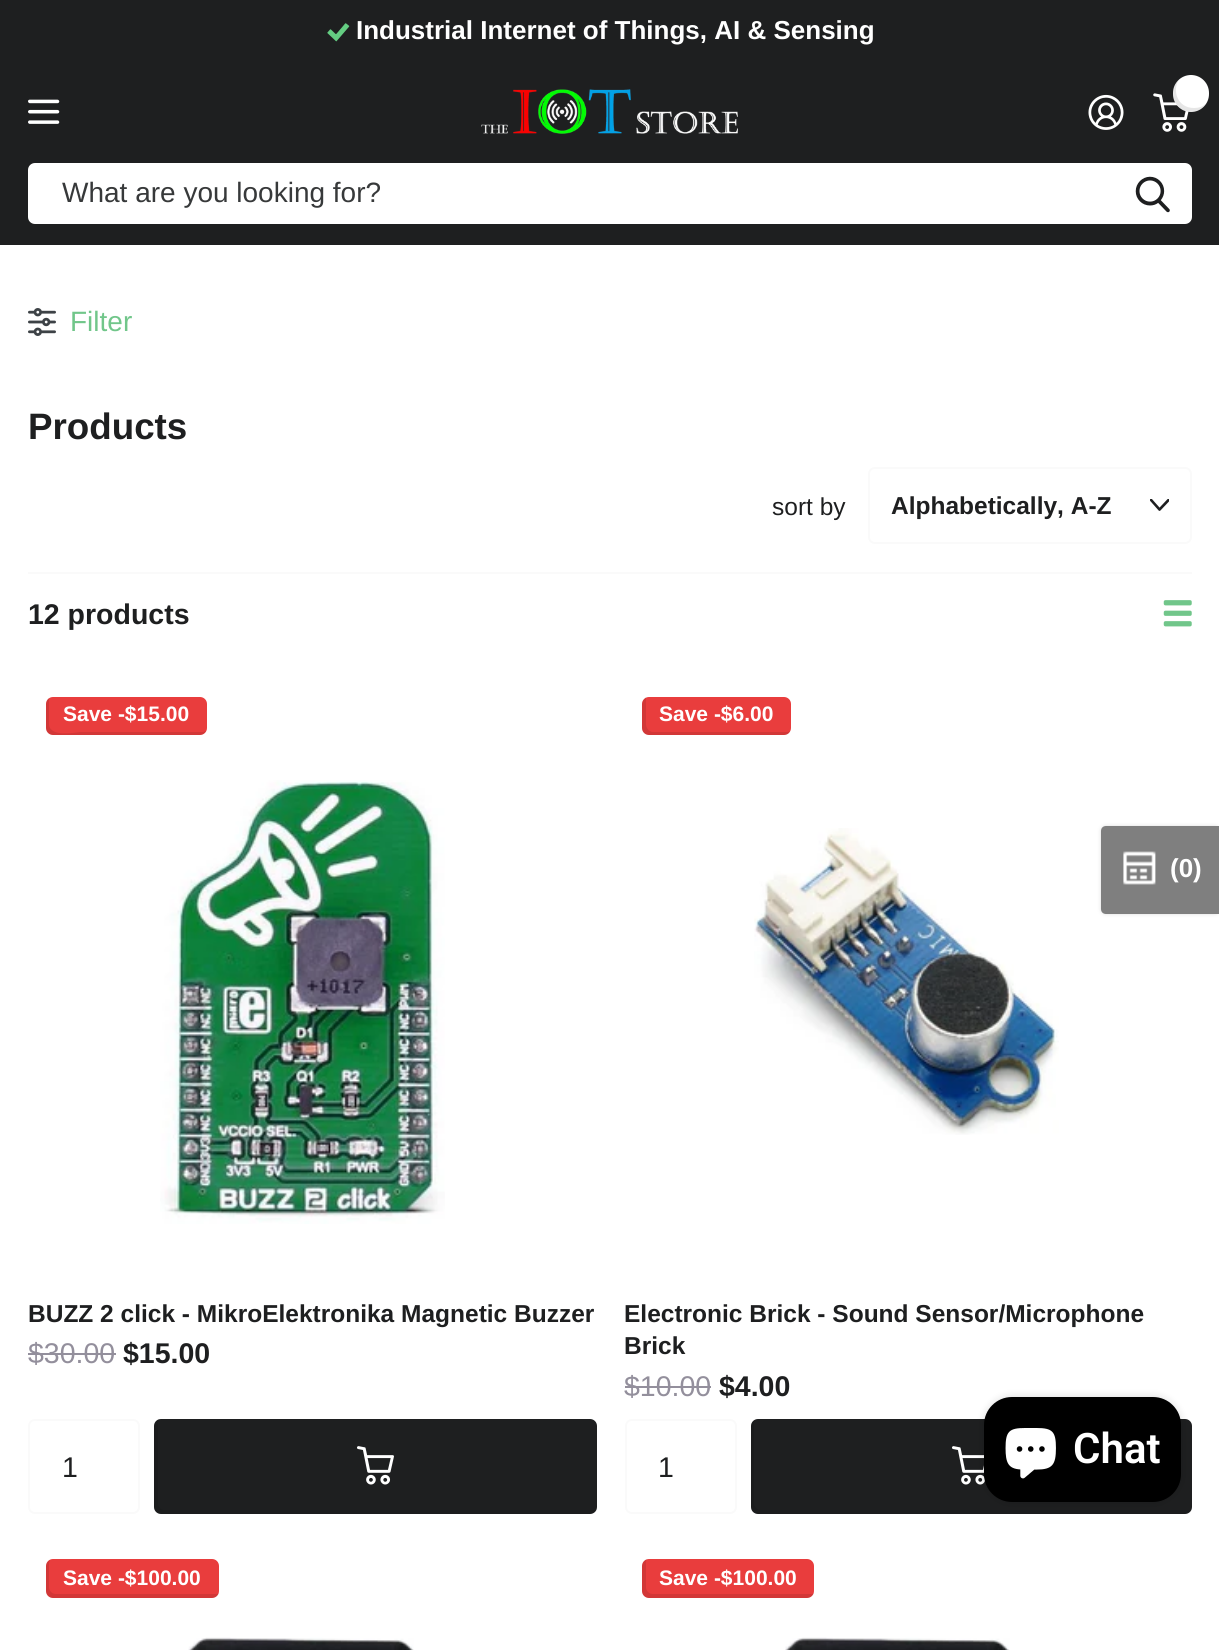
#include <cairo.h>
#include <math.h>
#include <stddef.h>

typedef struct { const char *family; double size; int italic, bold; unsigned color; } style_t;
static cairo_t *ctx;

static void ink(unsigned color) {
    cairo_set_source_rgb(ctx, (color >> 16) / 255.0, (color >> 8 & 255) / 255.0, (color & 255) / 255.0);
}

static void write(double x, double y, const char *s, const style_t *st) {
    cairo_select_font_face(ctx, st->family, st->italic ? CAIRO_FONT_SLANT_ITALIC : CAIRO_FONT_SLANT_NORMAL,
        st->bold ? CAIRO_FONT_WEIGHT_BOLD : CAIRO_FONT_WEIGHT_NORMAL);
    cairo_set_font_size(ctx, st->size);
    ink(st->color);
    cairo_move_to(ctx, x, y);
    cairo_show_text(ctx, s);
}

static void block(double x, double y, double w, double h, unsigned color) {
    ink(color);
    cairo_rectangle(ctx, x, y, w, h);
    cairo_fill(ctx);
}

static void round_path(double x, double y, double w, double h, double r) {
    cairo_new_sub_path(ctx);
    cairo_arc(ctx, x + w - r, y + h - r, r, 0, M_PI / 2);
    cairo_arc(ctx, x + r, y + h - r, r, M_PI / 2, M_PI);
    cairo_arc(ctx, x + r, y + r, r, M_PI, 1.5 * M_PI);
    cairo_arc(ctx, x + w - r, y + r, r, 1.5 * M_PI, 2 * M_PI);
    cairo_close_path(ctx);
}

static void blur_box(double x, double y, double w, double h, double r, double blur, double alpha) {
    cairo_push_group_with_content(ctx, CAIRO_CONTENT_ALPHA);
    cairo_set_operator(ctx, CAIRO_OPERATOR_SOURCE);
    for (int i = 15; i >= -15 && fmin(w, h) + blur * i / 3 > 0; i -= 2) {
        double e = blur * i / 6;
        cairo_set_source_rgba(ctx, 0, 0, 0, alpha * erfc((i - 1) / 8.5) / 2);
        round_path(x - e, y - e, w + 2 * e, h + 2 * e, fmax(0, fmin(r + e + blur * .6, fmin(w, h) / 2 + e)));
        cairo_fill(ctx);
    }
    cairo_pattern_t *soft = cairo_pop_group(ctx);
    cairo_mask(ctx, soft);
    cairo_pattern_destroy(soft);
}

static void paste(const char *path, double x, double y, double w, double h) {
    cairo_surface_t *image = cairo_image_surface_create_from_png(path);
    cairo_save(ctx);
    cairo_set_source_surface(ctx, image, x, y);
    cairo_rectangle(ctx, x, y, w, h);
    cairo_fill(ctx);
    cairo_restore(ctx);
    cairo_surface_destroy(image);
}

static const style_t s1 = {"Liberation Sans", 26, 0, 1, 0xffffff};
static const style_t s2 = {"Liberation Sans", 28, 0, 0, 0x37393a};
static const style_t s3 = {"Liberation Sans", 28, 0, 0, 0x71c68a};
static const style_t s4 = {"Liberation Sans", 36.75, 0, 1, 0x1e1f20};
static const style_t s5 = {"Liberation Sans", 24.5, 0, 0, 0x1e1f20};
static const style_t s6 = {"Liberation Sans", 24.5, 0, 1, 0x1e1f20};
static const style_t s7 = {"Liberation Sans", 28.5, 0, 1, 0x1e1f20};
static const style_t s8 = {"Liberation Sans", 21, 0, 1, 0xffffff};
static const style_t s9 = {"Liberation Sans", 28.5, 0, 0, 0x938f9c};
static const style_t s10 = {"Liberation Sans", 28.5, 0, 0, 0x1e1f20};
static const style_t s11 = {"Roboto SemiBold", 42, 0, 0, 0xffffff};

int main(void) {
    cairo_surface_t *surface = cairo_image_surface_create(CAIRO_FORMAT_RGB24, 1219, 1650);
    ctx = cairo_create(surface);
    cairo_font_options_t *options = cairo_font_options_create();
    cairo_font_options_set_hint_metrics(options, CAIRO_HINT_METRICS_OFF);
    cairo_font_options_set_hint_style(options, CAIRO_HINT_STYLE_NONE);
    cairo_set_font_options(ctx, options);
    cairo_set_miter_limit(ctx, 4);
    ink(0xffffff);
    cairo_paint(ctx);
    block(0, 0, 1219, 245, 0x1e1f20);
    paste("pic1.png", 327, 23, 23, 19);
    write(356, 39, "Industrial Internet of Things, AI & Sensing", &s1);
    paste("pic2.png", 28, 99, 32, 25);
    paste("pic3.png", 481, 89, 257, 45);
    paste("pic4.png", 1088, 94, 36, 36);
    paste("pic5.png", 1153, 93, 36, 39);
    round_path(1173, 75, 36, 37, 18);
    cairo_fill(ctx);
    cairo_set_source_rgba(ctx, 0, 0, 0, 0.1);
    cairo_new_path(ctx);
    cairo_move_to(ctx, 1206, 103.5);
    cairo_curve_to(ctx, 1203, 106.5, 1199, 108, 1194, 108);
    cairo_curve_to(ctx, 1177, 108, 1172, 90, 1179, 79.5);
    cairo_curve_to(ctx, 1171.5, 86.5, 1171, 99.5, 1178.5, 106.5);
    cairo_curve_to(ctx, 1186.5, 115, 1200, 113, 1206, 103.5);
    cairo_close_path(ctx);
    cairo_fill(ctx);
    ink(0xffffff);
    round_path(28, 163, 1164, 61, 7);
    cairo_fill(ctx);
    write(62, 202, "What are you looking for?", &s2);
    paste("pic6.png", 1135, 176, 35, 37);
    paste("pic7.png", 28, 308, 28, 28);
    write(70, 331, "Filter", &s3);
    write(28, 439, "Products", &s4);
    write(772, 515, "sort by", &s5);
    paste("pic8.png", 1150, 499, 19, 12);
    round_path(869, 468, 322, 75, 6);
    ink(0xfafafa);
    cairo_stroke(ctx);
    write(891, 514, "Alphabetically, A-Z", &s6);
    block(28, 572, 1164, 2, 0xfafafa);
    write(28, 624, "12 products", &s7);
    paste("pic9.png", 1163, 600, 29, 27);
    ink(0xe93d3d);
    round_path(46, 697, 161, 38, 7);
    cairo_fill(ctx);
    cairo_set_source_rgba(ctx, 0, 0, 0, 0.1);
    cairo_new_path(ctx);
    cairo_move_to(ctx, 49, 698);
    cairo_curve_to(ctx, 47, 699, 46, 702, 46, 704);
    cairo_line_to(ctx, 46, 728);
    cairo_curve_to(ctx, 46, 732, 49, 735, 53, 735);
    cairo_line_to(ctx, 200, 735);
    cairo_curve_to(ctx, 203, 735, 205, 733, 206, 731);
    cairo_line_to(ctx, 203, 732);
    cairo_line_to(ctx, 80, 732);
    cairo_curve_to(ctx, 77, 732, 51, 738, 49, 725);
    cairo_close_path(ctx);
    cairo_fill(ctx);
    write(63, 721, "Save -$15.00", &s8);
    paste("pic10.png", 160, 780, 285, 444);
    write(28, 1322, "BUZZ 2 click - MikroElektronika Magnetic Buzzer", &s6);
    write(28, 1363, "$30.00", &s9);
    block(28, 1353, 88, 2, 0x938f9c);
    write(123, 1363, "$15.00", &s7);
    round_path(29, 1420, 110, 93, 6);
    ink(0xfafafa);
    cairo_stroke(ctx);
    write(62, 1477, "1", &s10);
    round_path(154, 1419, 443, 95, 7);
    cairo_fill(ctx);
    cairo_set_source_rgba(ctx, 0, 0, 0, 0.1);
    cairo_new_path(ctx);
    cairo_move_to(ctx, 159, 1419);
    cairo_curve_to(ctx, 156, 1420, 154, 1423, 154, 1426);
    cairo_line_to(ctx, 154, 1507);
    cairo_curve_to(ctx, 154, 1511, 157, 1514, 161, 1514);
    cairo_line_to(ctx, 590, 1514);
    cairo_curve_to(ctx, 593, 1514, 596, 1512, 597, 1509);
    cairo_curve_to(ctx, 596, 1510, 594, 1510, 593, 1510);
    cairo_line_to(ctx, 164, 1510);
    cairo_curve_to(ctx, 161, 1510, 158, 1507, 158, 1503);
    cairo_line_to(ctx, 158, 1423);
    cairo_close_path(ctx);
    cairo_fill(ctx);
    paste("pic11.png", 357, 1446, 37, 39);
    ink(0xe93d3d);
    round_path(642, 697, 149, 38, 7);
    cairo_fill(ctx);
    cairo_set_source_rgba(ctx, 0, 0, 0, 0.1);
    cairo_new_path(ctx);
    cairo_move_to(ctx, 646, 697);
    cairo_curve_to(ctx, 644, 699, 642, 701, 642, 704);
    cairo_line_to(ctx, 642, 728);
    cairo_curve_to(ctx, 642, 732, 645, 735, 649, 735);
    cairo_line_to(ctx, 784, 735);
    cairo_curve_to(ctx, 787, 735, 789, 734, 790, 731);
    cairo_line_to(ctx, 788, 732);
    cairo_line_to(ctx, 653, 732);
    cairo_curve_to(ctx, 649, 732, 646, 728, 646, 724);
    cairo_line_to(ctx, 646, 700);
    cairo_close_path(ctx);
    cairo_fill(ctx);
    write(659, 721, "Save -$6.00", &s8);
    paste("pic12.png", 754, 828, 305, 307);
    write(624, 1322, "Electronic Brick - Sound Sensor/Microphone", &s6);
    write(624, 1354, "Brick", &s6);
    write(624, 1396, "$10.00", &s9);
    block(625, 1386, 86, 2, 0x938f9c);
    write(719, 1396, "$4.00", &s7);
    round_path(626, 1420, 110, 93, 6);
    ink(0xfafafa);
    cairo_stroke(ctx);
    write(658, 1477, "1", &s10);
    round_path(751, 1419, 441, 95, 7);
    cairo_fill(ctx);
    cairo_set_source_rgba(ctx, 0, 0, 0, 0.1);
    cairo_new_path(ctx);
    cairo_move_to(ctx, 755, 1420);
    cairo_curve_to(ctx, 753, 1421, 751, 1423, 751, 1426);
    cairo_line_to(ctx, 751, 1507);
    cairo_curve_to(ctx, 751, 1511, 754, 1514, 758, 1514);
    cairo_line_to(ctx, 1185, 1514);
    cairo_curve_to(ctx, 1188, 1514, 1191, 1512, 1192, 1509);
    cairo_curve_to(ctx, 1191, 1510, 1189, 1510, 1188, 1510);
    cairo_line_to(ctx, 761, 1510);
    cairo_curve_to(ctx, 757, 1510, 754, 1507, 754, 1503);
    cairo_line_to(ctx, 754, 1423);
    cairo_close_path(ctx);
    cairo_fill(ctx);
    paste("pic13.png", 952, 1446, 33, 39);
    ink(0xe93d3d);
    round_path(46, 1559, 173, 39, 7);
    cairo_fill(ctx);
    cairo_set_source_rgba(ctx, 0, 0, 0, 0.1);
    cairo_new_path(ctx);
    cairo_move_to(ctx, 50, 1560);
    cairo_curve_to(ctx, 48, 1561, 46, 1563, 46, 1566);
    cairo_line_to(ctx, 46, 1591);
    cairo_curve_to(ctx, 46, 1595, 49, 1598, 53, 1598);
    cairo_line_to(ctx, 212, 1598);
    cairo_curve_to(ctx, 215, 1598, 218, 1596, 219, 1593);
    cairo_curve_to(ctx, 218, 1594, 216, 1594, 215, 1594);
    cairo_line_to(ctx, 56, 1594);
    cairo_curve_to(ctx, 52, 1594, 49, 1591, 49, 1587);
    cairo_line_to(ctx, 49, 1563);
    cairo_close_path(ctx);
    cairo_fill(ctx);
    write(63, 1585, "Save -$100.00", &s8);
    paste("pic14.png", 188, 1637, 226, 13);
    ink(0xe93d3d);
    round_path(642, 1559, 172, 39, 7);
    cairo_fill(ctx);
    cairo_set_source_rgba(ctx, 0, 0, 0, 0.1);
    cairo_new_path(ctx);
    cairo_move_to(ctx, 647, 1559);
    cairo_curve_to(ctx, 644, 1560, 642, 1563, 642, 1566);
    cairo_line_to(ctx, 642, 1591);
    cairo_curve_to(ctx, 642, 1595, 645, 1598, 649, 1598);
    cairo_line_to(ctx, 807, 1598);
    cairo_curve_to(ctx, 810, 1598, 813, 1596, 814, 1593);
    cairo_curve_to(ctx, 813, 1594, 811, 1594, 810, 1594);
    cairo_line_to(ctx, 653, 1594);
    cairo_curve_to(ctx, 649, 1594, 646, 1591, 646, 1587);
    cairo_line_to(ctx, 646, 1563);
    cairo_curve_to(ctx, 646, 1562, 646, 1560, 647, 1559);
    cairo_close_path(ctx);
    cairo_fill(ctx);
    write(659, 1585, "Save -$100.00", &s8);
    paste("pic15.png", 785, 1637, 225, 13);
    cairo_save(ctx);
    cairo_set_fill_rule(ctx, CAIRO_FILL_RULE_EVEN_ODD);
    cairo_new_path(ctx);
    cairo_move_to(ctx, 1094, 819);
    cairo_line_to(ctx, 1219, 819);
    cairo_line_to(ctx, 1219, 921);
    cairo_line_to(ctx, 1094, 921);
    cairo_close_path(ctx);
    cairo_move_to(ctx, 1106, 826);
    cairo_line_to(ctx, 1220, 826);
    cairo_line_to(ctx, 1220, 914);
    cairo_line_to(ctx, 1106, 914);
    cairo_curve_to(ctx, 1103, 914, 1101, 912, 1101, 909);
    cairo_line_to(ctx, 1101, 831);
    cairo_curve_to(ctx, 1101, 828, 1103, 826, 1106, 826);
    cairo_close_path(ctx);
    cairo_clip(ctx);
    ink(0xdddddd);
    blur_box(1101, 826, 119, 88, 5, 2, 1);
    cairo_restore(ctx);
    cairo_set_source_rgba(ctx, 0, 0, 0, 0.5);
    cairo_new_path(ctx);
    cairo_move_to(ctx, 1106, 826);
    cairo_line_to(ctx, 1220, 826);
    cairo_line_to(ctx, 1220, 914);
    cairo_line_to(ctx, 1106, 914);
    cairo_curve_to(ctx, 1103, 914, 1101, 912, 1101, 909);
    cairo_line_to(ctx, 1101, 831);
    cairo_curve_to(ctx, 1101, 828, 1103, 826, 1106, 826);
    cairo_close_path(ctx);
    cairo_fill(ctx);
    paste("pic16.png", 1123, 851, 33, 34);
    write(1170, 877, "(0)", &s1);
    ink(0x000000);
    blur_box(984, 1397, 197, 105, 28, 4.5, 0.15);
    ink(0x000000);
    round_path(984, 1397, 197, 105, 28);
    cairo_fill(ctx);
    paste("pic17.png", 1005, 1428, 51, 51);
    write(1073, 1463, "Chat", &s11);
    cairo_surface_write_to_png(surface, "screenshot.png");
    cairo_font_options_destroy(options);
    cairo_destroy(ctx);
    cairo_surface_destroy(surface);
    return 0;
}
